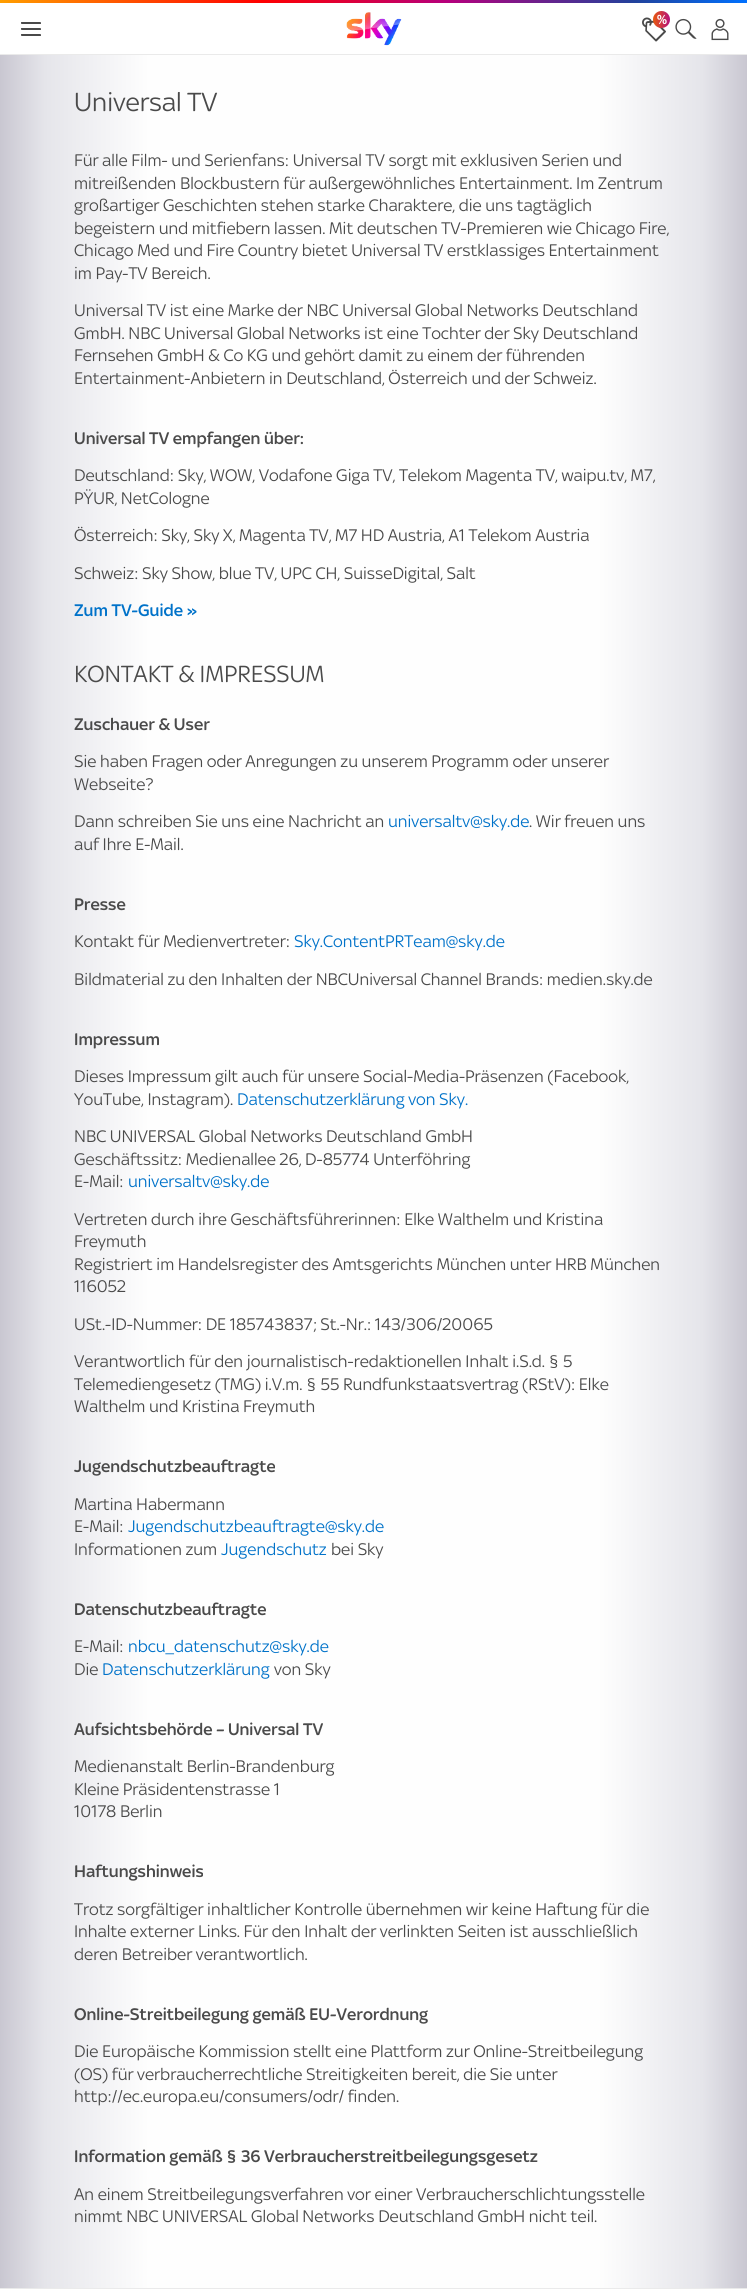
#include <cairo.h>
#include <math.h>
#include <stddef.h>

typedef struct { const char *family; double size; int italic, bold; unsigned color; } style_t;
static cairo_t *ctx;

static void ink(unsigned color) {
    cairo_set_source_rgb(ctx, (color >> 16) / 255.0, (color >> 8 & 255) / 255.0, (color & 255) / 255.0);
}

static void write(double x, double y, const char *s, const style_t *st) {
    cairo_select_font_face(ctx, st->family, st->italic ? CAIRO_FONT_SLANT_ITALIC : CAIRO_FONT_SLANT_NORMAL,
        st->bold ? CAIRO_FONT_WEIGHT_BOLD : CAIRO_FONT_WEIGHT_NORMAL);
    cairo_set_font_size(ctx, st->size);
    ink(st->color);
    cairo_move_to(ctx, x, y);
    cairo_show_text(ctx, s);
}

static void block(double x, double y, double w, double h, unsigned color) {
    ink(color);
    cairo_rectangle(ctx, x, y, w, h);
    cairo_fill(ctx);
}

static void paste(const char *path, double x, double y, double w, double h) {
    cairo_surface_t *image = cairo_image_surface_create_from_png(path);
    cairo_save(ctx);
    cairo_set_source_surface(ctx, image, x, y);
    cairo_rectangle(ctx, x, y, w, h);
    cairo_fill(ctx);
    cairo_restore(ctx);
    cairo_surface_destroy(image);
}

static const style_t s1 = {"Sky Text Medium", 14, 0, 0, 0xffffff};
static const style_t s2 = {"Sky Text", 28, 0, 0, 0x4a4a4a};
static const style_t s3 = {"Sky Text", 18, 0, 0, 0x4a4a4a};
static const style_t s4 = {"Sky Text Medium", 18, 0, 0, 0x4a4a4a};
static const style_t s5 = {"Sky Text Medium", 18, 0, 0, 0x0072c9};
static const style_t s6 = {"Sky Text", 25, 0, 0, 0x4a4a4a};
static const style_t s7 = {"Sky Text", 18, 0, 0, 0x0072c9};

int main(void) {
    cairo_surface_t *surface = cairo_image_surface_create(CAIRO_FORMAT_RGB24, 747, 2294);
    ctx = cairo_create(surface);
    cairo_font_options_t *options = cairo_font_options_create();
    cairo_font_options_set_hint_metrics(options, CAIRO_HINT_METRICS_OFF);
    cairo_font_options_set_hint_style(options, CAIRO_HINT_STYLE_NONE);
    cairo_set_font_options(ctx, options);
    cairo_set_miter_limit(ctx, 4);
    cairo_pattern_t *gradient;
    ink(0xffffff);
    cairo_paint(ctx);
    gradient = cairo_pattern_create_linear(0, 1730, 747, 1730);
    cairo_pattern_add_color_stop_rgba(gradient, 0, 0.788, 0.78, 0.82, 1);
    cairo_pattern_add_color_stop_rgba(gradient, 0.06, 0.898, 0.898, 0.918, 1);
    cairo_pattern_add_color_stop_rgba(gradient, 0.2, 0.996, 0.996, 0.996, 1);
    cairo_pattern_add_color_stop_rgba(gradient, 0.8, 0.996, 0.996, 0.996, 1);
    cairo_pattern_add_color_stop_rgba(gradient, 0.94, 0.898, 0.898, 0.918, 1);
    cairo_pattern_add_color_stop_rgba(gradient, 1, 0.788, 0.78, 0.82, 1);
    cairo_set_source(ctx, gradient);
    cairo_pattern_destroy(gradient);
    cairo_rectangle(ctx, 0, 55, 747, 2233);
    cairo_fill(ctx);
    gradient = cairo_pattern_create_linear(0, 1.5, 747, 1.5);
    cairo_pattern_add_color_stop_rgba(gradient, 0, 1, 0.62, 0, 1);
    cairo_pattern_add_color_stop_rgba(gradient, 0.35, 1, 0, 0, 1);
    cairo_pattern_add_color_stop_rgba(gradient, 0.6, 0.71, 0, 0.49, 1);
    cairo_pattern_add_color_stop_rgba(gradient, 0.85, 0.129, 0.259, 0.612, 1);
    cairo_pattern_add_color_stop_rgba(gradient, 1, 0, 0.443, 1, 1);
    cairo_set_source(ctx, gradient);
    cairo_pattern_destroy(gradient);
    cairo_rectangle(ctx, 0, 0, 747, 3);
    cairo_fill(ctx);
    paste("pic1.png", 346, 12, 56, 34);
    paste("pic2.png", 642, 17, 24, 25);
    gradient = cairo_pattern_create_linear(653, 20, 670, 20);
    cairo_pattern_add_color_stop_rgba(gradient, 0, 0.91, 0.349, 0.051, 1);
    cairo_pattern_add_color_stop_rgba(gradient, 1, 0.706, 0.063, 0.494, 1);
    cairo_set_source(ctx, gradient);
    cairo_pattern_destroy(gradient);
    cairo_arc(ctx, 661.5, 19.5, 8.5, 0, 2 * M_PI);
    cairo_fill(ctx);
    write(657, 24, "%", &s1);
    paste("pic3.png", 675, 18, 22, 21);
    paste("pic4.png", 711, 18, 18, 23);
    paste("pic5.png", 21, 22, 20, 14);
    block(0, 54, 747, 1, 0xeaeaea);
    write(74, 111, "Universal TV", &s2);
    write(74, 166, "Für alle Film- und Serienfans: Universal TV sorgt mit exklusiven Serien und", &s3);
    write(74, 189, "mitreißenden Blockbustern für außergewöhnliches Entertainment. Im Zentrum", &s3);
    write(74, 211, "großartiger Geschichten stehen starke Charaktere, die uns tagtäglich", &s3);
    write(74, 234, "begeistern und mitfiebern lassen. Mit deutschen TV-Premieren wie Chicago Fire,", &s3);
    write(74, 256, "Chicago Med und Fire Country bietet Universal TV erstklassiges Entertainment", &s3);
    write(74, 279, "im Pay-TV Bereich.", &s3);
    write(74, 316, "Universal TV ist eine Marke der NBC Universal Global Networks Deutschland", &s3);
    write(74, 339, "GmbH. NBC Universal Global Networks ist eine Tochter der Sky Deutschland", &s3);
    write(74, 361, "Fernsehen GmbH & Co KG und gehört damit zu einem der führenden", &s3);
    write(74, 384, "Entertainment-Anbietern in Deutschland, Österreich und der Schweiz.", &s3);
    write(74, 444, "Universal TV empfangen über:", &s4);
    write(74, 481, "Deutschland: Sky, WOW, Vodafone Giga TV, Telekom Magenta TV, waipu.tv, M7,", &s3);
    write(74, 504, "PŸUR, NetCologne", &s3);
    write(74, 541, "Österreich: Sky, Sky X, Magenta TV, M7 HD Austria, A1 Telekom Austria", &s3);
    write(74, 579, "Schweiz: Sky Show, blue TV, UPC CH, SuisseDigital, Salt", &s3);
    write(74, 616, "Zum TV-Guide »", &s5);
    write(74, 682, "KONTAKT & IMPRESSUM", &s6);
    write(74, 730, "Zuschauer & User", &s4);
    write(74, 767, "Sie haben Fragen oder Anregungen zu unserem Programm oder unserer", &s3);
    write(74, 790, "Webseite?", &s3);
    write(74, 827, "Dann schreiben Sie uns eine Nachricht an", &s3);
    write(388, 827, "universaltv@sky.de", &s7);
    write(529, 827, ". Wir freuen uns", &s3);
    write(74, 850, "auf Ihre E-Mail.", &s3);
    write(74, 910, "Presse", &s4);
    write(74, 947, "Kontakt für Medienvertreter:", &s3);
    write(294, 947, "Sky.ContentPRTeam@sky.de", &s7);
    write(74, 985, "Bildmaterial zu den Inhalten der NBCUniversal Channel Brands: medien.sky.de", &s3);
    write(74, 1045, "Impressum", &s4);
    write(74, 1082, "Dieses Impressum gilt auch für unsere Social-Media-Präsenzen (Facebook,", &s3);
    write(74, 1105, "YouTube, Instagram).", &s3);
    write(237, 1105, "Datenschutzerklärung von Sky.", &s7);
    write(74, 1142, "NBC UNIVERSAL Global Networks Deutschland GmbH", &s3);
    write(74, 1165, "Geschäftssitz: Medienallee 26, D-85774 Unterföhring", &s3);
    write(74, 1187, "E-Mail:", &s3);
    write(128, 1187, "universaltv@sky.de", &s7);
    write(74, 1225, "Vertreten durch ihre Geschäftsführerinnen: Elke Walthelm und Kristina", &s3);
    write(74, 1247, "Freymuth", &s3);
    write(74, 1270, "Registriert im Handelsregister des Amtsgerichts München unter HRB München", &s3);
    write(74, 1292, "116052", &s3);
    write(74, 1330, "USt.-ID-Nummer: DE 185743837; St.-Nr.: 143/306/20065", &s3);
    write(74, 1367, "Verantwortlich für den journalistisch-redaktionellen Inhalt i.S.d. § 5", &s3);
    write(74, 1390, "Telemediengesetz (TMG) i.V.m. § 55 Rundfunkstaatsvertrag (RStV): Elke", &s3);
    write(74, 1412, "Walthelm und Kristina Freymuth", &s3);
    write(74, 1472, "Jugendschutzbeauftragte", &s4);
    write(74, 1510, "Martina Habermann", &s3);
    write(74, 1532, "E-Mail:", &s3);
    write(128, 1532, "Jugendschutzbeauftragte@sky.de", &s7);
    write(74, 1555, "Informationen zum", &s3);
    write(221, 1555, "Jugendschutz", &s7);
    write(331, 1555, "bei Sky", &s3);
    write(74, 1615, "Datenschutzbeauftragte", &s4);
    write(74, 1652, "E-Mail:", &s3);
    write(128, 1652, "nbcu_datenschutz@sky.de", &s7);
    write(74, 1675, "Die", &s3);
    write(102, 1675, "Datenschutzerklärung", &s7);
    write(274, 1675, "von Sky", &s3);
    write(74, 1735, "Aufsichtsbehörde – Universal TV", &s4);
    write(74, 1772, "Medienanstalt Berlin-Brandenburg", &s3);
    write(74, 1795, "Kleine Präsidentenstrasse 1", &s3);
    write(74, 1817, "10178 Berlin", &s3);
    write(74, 1877, "Haftungshinweis", &s4);
    write(74, 1915, "Trotz sorgfältiger inhaltlicher Kontrolle übernehmen wir keine Haftung für die", &s3);
    write(74, 1937, "Inhalte externer Links. Für den Inhalt der verlinkten Seiten ist ausschließlich", &s3);
    write(74, 1960, "deren Betreiber verantwortlich.", &s3);
    write(74, 2020, "Online-Streitbeilegung gemäß EU-Verordnung", &s4);
    write(74, 2057, "Die Europäische Kommission stellt eine Plattform zur Online-Streitbeilegung", &s3);
    write(74, 2080, "(OS) für verbraucherrechtliche Streitigkeiten bereit, die Sie unter", &s3);
    write(74, 2102, "http://ec.europa.eu/consumers/odr/ finden.", &s3);
    write(74, 2162, "Information gemäß § 36 Verbraucherstreitbeilegungsgesetz", &s4);
    write(74, 2200, "An einem Streitbeilegungsverfahren vor einer Verbraucherschlichtungsstelle", &s3);
    write(74, 2222, "nimmt NBC UNIVERSAL Global Networks Deutschland GmbH nicht teil.", &s3);
    block(0, 2288, 747, 1, 0xeaeaea);
    cairo_surface_write_to_png(surface, "screenshot.png");
    cairo_font_options_destroy(options);
    cairo_destroy(ctx);
    cairo_surface_destroy(surface);
    return 0;
}
